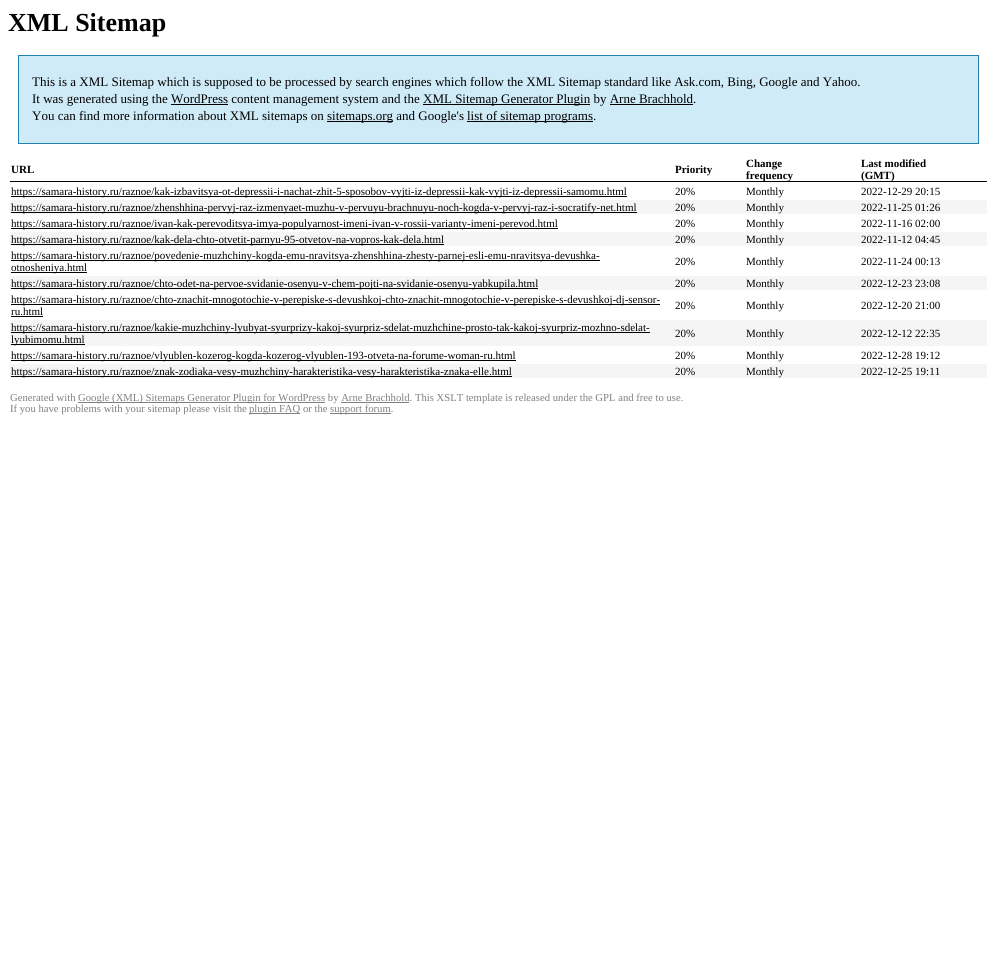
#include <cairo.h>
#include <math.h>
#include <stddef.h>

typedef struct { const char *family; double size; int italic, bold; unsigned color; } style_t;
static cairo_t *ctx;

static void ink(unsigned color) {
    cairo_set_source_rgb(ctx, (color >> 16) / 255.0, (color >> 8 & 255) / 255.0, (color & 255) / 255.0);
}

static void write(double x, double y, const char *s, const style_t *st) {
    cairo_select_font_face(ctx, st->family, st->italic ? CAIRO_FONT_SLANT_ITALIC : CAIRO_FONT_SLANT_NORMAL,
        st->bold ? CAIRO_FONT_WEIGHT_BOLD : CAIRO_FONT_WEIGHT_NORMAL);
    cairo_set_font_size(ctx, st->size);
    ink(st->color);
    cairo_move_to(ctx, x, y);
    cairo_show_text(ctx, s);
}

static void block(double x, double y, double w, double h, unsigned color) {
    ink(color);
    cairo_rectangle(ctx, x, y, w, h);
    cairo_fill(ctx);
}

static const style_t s1 = {"Liberation Serif", 26, 0, 1, 0x000000};
static const style_t s2 = {"Liberation Serif", 13, 0, 0, 0x000000};
static const style_t s3 = {"Liberation Serif", 11, 0, 1, 0x000000};
static const style_t s4 = {"Liberation Serif", 11, 0, 0, 0x000000};
static const style_t s5 = {"Liberation Serif", 10.67, 0, 0, 0x808080};

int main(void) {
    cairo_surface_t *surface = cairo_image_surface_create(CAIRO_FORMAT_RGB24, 997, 960);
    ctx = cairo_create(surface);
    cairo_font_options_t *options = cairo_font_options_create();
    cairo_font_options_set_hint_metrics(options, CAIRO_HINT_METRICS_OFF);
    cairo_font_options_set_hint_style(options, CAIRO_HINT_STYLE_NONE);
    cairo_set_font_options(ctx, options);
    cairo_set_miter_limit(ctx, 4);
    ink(0xffffff);
    cairo_paint(ctx);
    write(8, 31, "XML Sitemap", &s1);
    ink(0xcfebf7);
    cairo_rectangle(ctx, 18.5, 55.5, 960, 88);
    cairo_fill_preserve(ctx);
    ink(0x2580b2);
    cairo_set_line_width(ctx, 1);
    cairo_stroke(ctx);
    write(32, 86, "This is a XML Sitemap which is supposed to be processed by search engines which follow the XML Sitemap standard like Ask.com, Bing, Google and Yahoo.", &s2);
    write(32, 103, "It was generated using the WordPress content management system and the", &s2);
    block(423, 104, 167, 1, 0x000000);
    write(423, 103, "XML Sitemap Generator Plugin by Arne Brachhold.", &s2);
    block(171, 104, 57, 1, 0x000000);
    block(610, 104, 83, 1, 0x000000);
    write(32, 120, "You can find more information about XML sitemaps on", &s2);
    block(327, 121, 66, 1, 0x000000);
    write(327, 120, "sitemaps.org and Google's", &s2);
    block(467, 121, 126, 1, 0x000000);
    write(467, 120, "list of sitemap programs.", &s2);
    block(10, 181, 977, 1, 0x000000);
    write(11, 173, "URL", &s3);
    write(675, 173, "Priority", &s3);
    write(746, 167, "Change", &s3);
    write(746, 179, "frequency", &s3);
    write(861, 167, "Last modified", &s3);
    write(861, 179, "(GMT)", &s3);
    block(11, 196, 616, 1, 0x000000);
    write(11, 195, "https://samara-history.ru/raznoe/kak-izbavitsya-ot-depressii-i-nachat-zhit-5-sposobov-vyjti-iz-depressii-kak-vyjti-iz-depressii-samomu.html", &s4);
    write(675, 195, "20%", &s4);
    write(746, 195, "Monthly", &s4);
    write(861, 195, "2022-12-29 20:15", &s4);
    block(10, 200, 977, 14, 0xf5f5f5);
    block(11, 212, 626, 1, 0x000000);
    write(11, 211, "https://samara-history.ru/raznoe/zhenshhina-pervyj-raz-izmenyaet-muzhu-v-pervuyu-brachnuyu-noch-kogda-v-pervyj-raz-i-socratify-net.html", &s4);
    write(675, 211, "20%", &s4);
    write(746, 211, "Monthly", &s4);
    write(861, 211, "2022-11-25 01:26", &s4);
    block(11, 228, 547, 1, 0x000000);
    write(11, 227, "https://samara-history.ru/raznoe/ivan-kak-perevoditsya-imya-populyarnost-imeni-ivan-v-rossii-varianty-imeni-perevod.html", &s4);
    write(675, 227, "20%", &s4);
    write(746, 227, "Monthly", &s4);
    write(861, 227, "2022-11-16 02:00", &s4);
    block(10, 232, 977, 14, 0xf5f5f5);
    block(11, 244, 433, 1, 0x000000);
    write(11, 243, "https://samara-history.ru/raznoe/kak-dela-chto-otvetit-parnyu-95-otvetov-na-vopros-kak-dela.html", &s4);
    write(675, 243, "20%", &s4);
    write(746, 243, "Monthly", &s4);
    write(861, 243, "2022-11-12 04:45", &s4);
    block(11, 260, 589, 1, 0x000000);
    write(11, 259, "https://samara-history.ru/raznoe/povedenie-muzhchiny-kogda-emu-nravitsya-zhenshhina-zhesty-parnej-esli-emu-nravitsya-devushka-", &s4);
    block(11, 272, 76, 1, 0x000000);
    write(11, 271, "otnosheniya.html", &s4);
    write(675, 265, "20%", &s4);
    write(746, 265, "Monthly", &s4);
    write(861, 265, "2022-11-24 00:13", &s4);
    block(10, 276, 977, 14, 0xf5f5f5);
    block(11, 288, 527, 1, 0x000000);
    write(11, 287, "https://samara-history.ru/raznoe/chto-odet-na-pervoe-svidanie-osenyu-v-chem-pojti-na-svidanie-osenyu-yabkupila.html", &s4);
    write(675, 287, "20%", &s4);
    write(746, 287, "Monthly", &s4);
    write(861, 287, "2022-12-23 23:08", &s4);
    block(11, 304, 649, 1, 0x000000);
    write(11, 303, "https://samara-history.ru/raznoe/chto-znachit-mnogotochie-v-perepiske-s-devushkoj-chto-znachit-mnogotochie-v-perepiske-s-devushkoj-dj-sensor-", &s4);
    write(11, 315, "ru.html", &s4);
    block(11, 316, 32, 1, 0x000000);
    write(675, 309, "20%", &s4);
    write(746, 309, "Monthly", &s4);
    write(861, 309, "2022-12-20 21:00", &s4);
    block(10, 320, 977, 26, 0xf5f5f5);
    block(11, 332, 639, 1, 0x000000);
    write(11, 331, "https://samara-history.ru/raznoe/kakie-muzhchiny-lyubyat-syurprizy-kakoj-syurpriz-sdelat-muzhchine-prosto-tak-kakoj-syurpriz-mozhno-sdelat-", &s4);
    block(11, 344, 74, 1, 0x000000);
    write(11, 343, "lyubimomu.html", &s4);
    write(675, 337, "20%", &s4);
    write(746, 337, "Monthly", &s4);
    write(861, 337, "2022-12-12 22:35", &s4);
    block(11, 360, 505, 1, 0x000000);
    write(11, 359, "https://samara-history.ru/raznoe/vlyublen-kozerog-kogda-kozerog-vlyublen-193-otveta-na-forume-woman-ru.html", &s4);
    write(675, 359, "20%", &s4);
    write(746, 359, "Monthly", &s4);
    write(861, 359, "2022-12-28 19:12", &s4);
    block(10, 364, 977, 14, 0xf5f5f5);
    block(11, 376, 501, 1, 0x000000);
    write(11, 375, "https://samara-history.ru/raznoe/znak-zodiaka-vesy-muzhchiny-harakteristika-vesy-harakteristika-znaka-elle.html", &s4);
    write(675, 375, "20%", &s4);
    write(746, 375, "Monthly", &s4);
    write(861, 375, "2022-12-25 19:11", &s4);
    write(10, 401, "Generated with", &s5);
    block(78, 402, 247, 1, 0x808080);
    write(78, 401, "Google (XML) Sitemaps Generator Plugin for WordPress by Arne Brachhold. This XSLT template is released under the GPL and free to use.", &s5);
    block(341, 402, 68, 1, 0x808080);
    write(10, 412, "If you have problems with your sitemap please visit the", &s5);
    block(249, 413, 51, 1, 0x808080);
    write(249, 412, "plugin FAQ or the", &s5);
    block(330, 413, 61, 1, 0x808080);
    write(330, 412, "support forum.", &s5);
    cairo_surface_write_to_png(surface, "screenshot.png");
    cairo_font_options_destroy(options);
    cairo_destroy(ctx);
    cairo_surface_destroy(surface);
    return 0;
}
